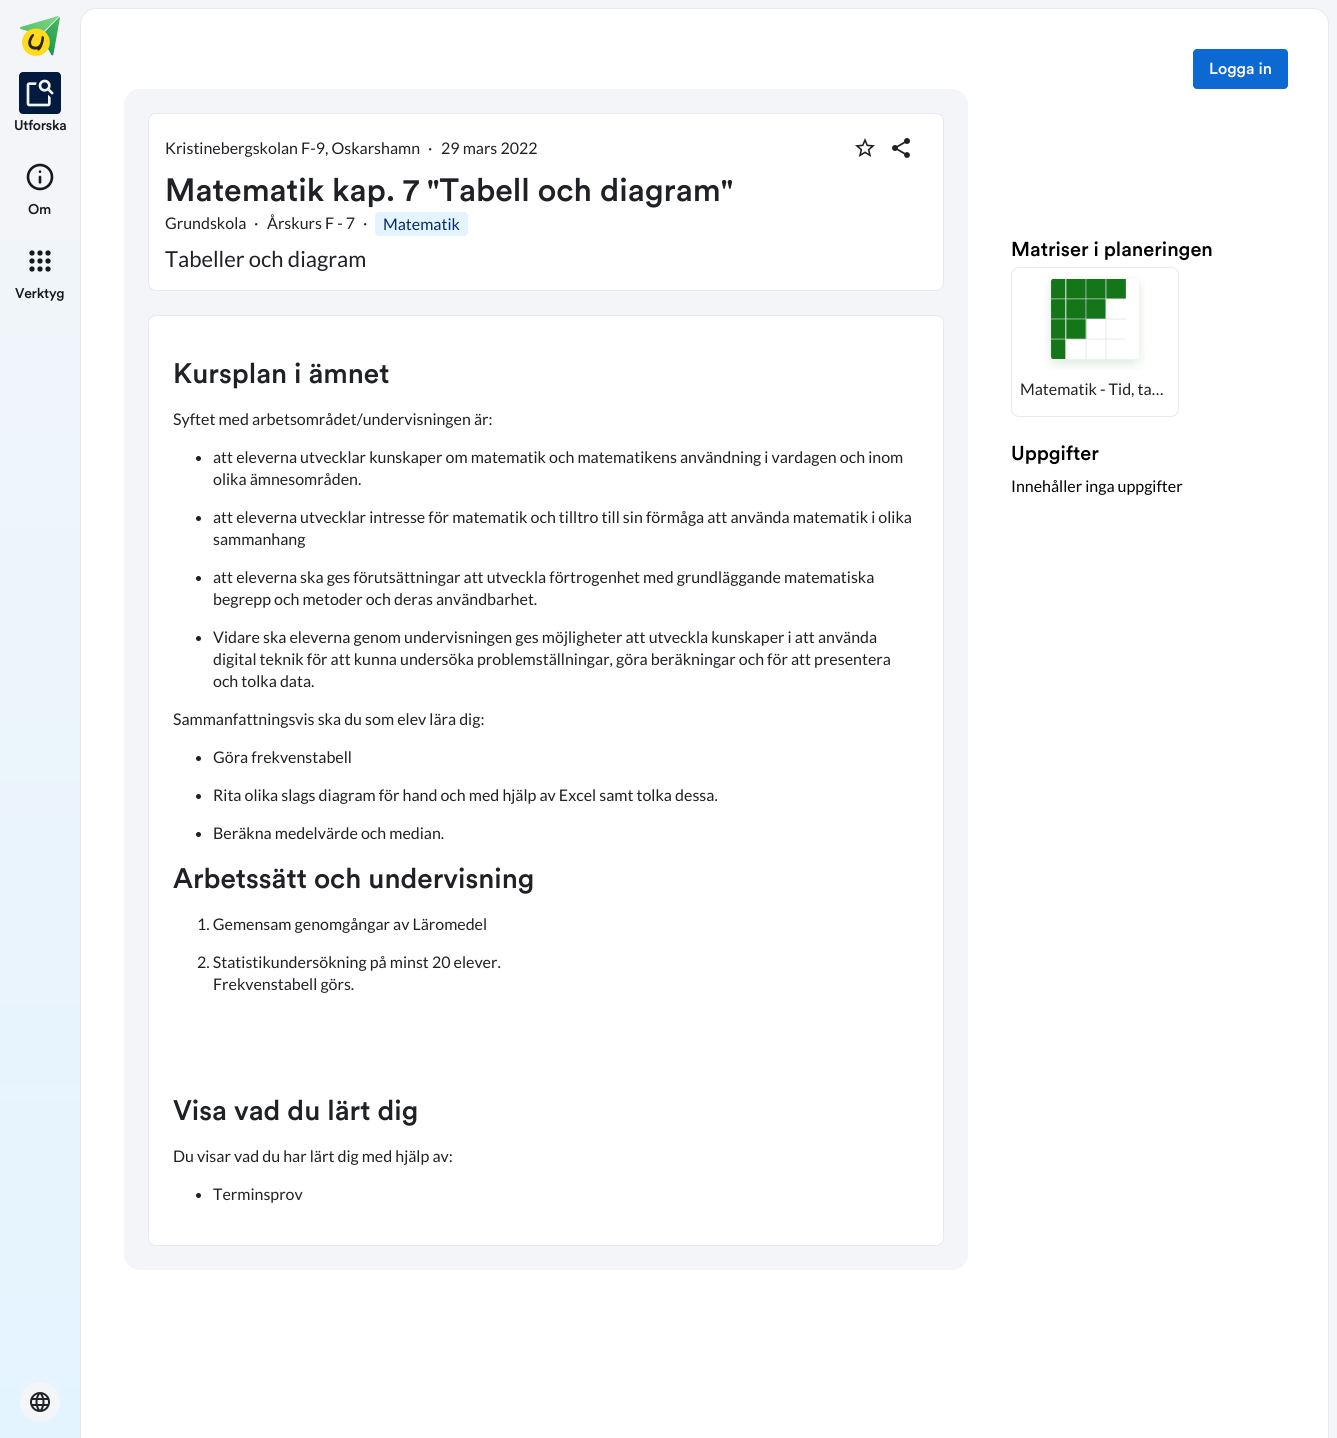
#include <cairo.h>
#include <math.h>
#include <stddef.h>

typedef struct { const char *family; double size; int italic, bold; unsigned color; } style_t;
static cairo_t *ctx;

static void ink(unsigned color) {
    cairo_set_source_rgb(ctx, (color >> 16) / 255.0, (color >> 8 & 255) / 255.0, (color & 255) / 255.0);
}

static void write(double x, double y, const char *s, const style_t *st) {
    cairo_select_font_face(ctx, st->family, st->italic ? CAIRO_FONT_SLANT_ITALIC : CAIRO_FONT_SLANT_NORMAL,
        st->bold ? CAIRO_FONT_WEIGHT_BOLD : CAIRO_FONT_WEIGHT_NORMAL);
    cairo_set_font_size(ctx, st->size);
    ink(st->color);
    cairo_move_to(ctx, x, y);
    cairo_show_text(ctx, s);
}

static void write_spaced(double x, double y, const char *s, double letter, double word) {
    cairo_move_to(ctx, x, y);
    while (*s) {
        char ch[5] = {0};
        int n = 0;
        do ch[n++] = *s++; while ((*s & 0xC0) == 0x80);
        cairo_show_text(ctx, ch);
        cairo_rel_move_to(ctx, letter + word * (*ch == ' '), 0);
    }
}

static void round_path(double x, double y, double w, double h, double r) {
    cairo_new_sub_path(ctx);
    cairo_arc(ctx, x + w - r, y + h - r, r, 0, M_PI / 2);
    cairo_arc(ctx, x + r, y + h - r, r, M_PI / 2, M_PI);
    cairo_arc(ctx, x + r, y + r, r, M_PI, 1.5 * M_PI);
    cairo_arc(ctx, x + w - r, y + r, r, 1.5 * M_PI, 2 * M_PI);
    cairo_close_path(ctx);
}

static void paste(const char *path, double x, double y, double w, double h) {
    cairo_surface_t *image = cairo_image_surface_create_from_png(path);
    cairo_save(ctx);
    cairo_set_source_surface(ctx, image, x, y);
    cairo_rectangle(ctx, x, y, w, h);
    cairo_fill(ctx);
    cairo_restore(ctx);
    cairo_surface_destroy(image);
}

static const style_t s1 = {"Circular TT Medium", 16, 0, 0, 0xffffff};
static const style_t s2 = {"Lato", 16, 0, 0, 0x1f2124};
static const style_t s3 = {"Circular TT Medium", 32, 0, 0, 0x1f2124};
static const style_t s4 = {"Lato", 16, 0, 0, 0x042a65};
static const style_t s5 = {"Lato", 22, 0, 0, 0x1f2124};
static const style_t s6 = {"Circular Medium", 28, 0, 0, 0x1f2124};
static const style_t s7 = {"Circular TT Medium", 20, 0, 0, 0x000000};
static const style_t s8 = {"Lato", 16, 0, 0, 0x000000};

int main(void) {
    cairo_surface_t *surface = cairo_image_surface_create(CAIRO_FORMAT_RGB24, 1337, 1438);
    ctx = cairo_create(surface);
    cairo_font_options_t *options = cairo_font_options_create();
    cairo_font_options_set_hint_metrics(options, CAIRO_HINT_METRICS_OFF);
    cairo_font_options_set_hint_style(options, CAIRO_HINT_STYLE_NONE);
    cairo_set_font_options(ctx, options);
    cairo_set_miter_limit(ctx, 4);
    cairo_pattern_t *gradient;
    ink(0xf3f5f9);
    cairo_paint(ctx);
    gradient = cairo_pattern_create_linear(40, 0, 40, 1438);
    cairo_pattern_add_color_stop_rgba(gradient, 0, 0.953, 0.961, 0.976, 1);
    cairo_pattern_add_color_stop_rgba(gradient, 1, 0.894, 0.957, 1, 1);
    cairo_set_source(ctx, gradient);
    cairo_pattern_destroy(gradient);
    cairo_rectangle(ctx, 0, 240, 80, 1198);
    cairo_fill(ctx);
    paste("pic1.png", 20, 16, 40, 40);
    ink(0x031a3e);
    round_path(19, 72, 42, 42, 4);
    cairo_fill(ctx);
    paste("pic2.png", 26, 79, 28, 28);
    cairo_select_font_face(ctx, "Circular TT Medium", CAIRO_FONT_SLANT_NORMAL, CAIRO_FONT_WEIGHT_NORMAL);
    cairo_set_font_size(ctx, 14);
    ink(0x181a1d);
    write_spaced(14, 130, "Utforska", -0.25, 0);
    paste("pic3.png", 26, 163, 28, 28);
    write_spaced(28, 214, "Om", -0.25, 0);
    paste("pic4.png", 29, 250, 22, 22);
    write_spaced(15, 298, "Verktyg", -0.25, 0);
    ink(0xf3f5f9);
    cairo_new_path(ctx);
    cairo_arc(ctx, 40, 1402, 20, 0, 2 * M_PI);
    cairo_fill(ctx);
    paste("pic5.png", 30, 1392, 20, 20);
    ink(0xffffff);
    round_path(80.5, 8.5, 1248, 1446, 15.5);
    cairo_fill_preserve(ctx);
    ink(0xe6e9f0);
    cairo_set_line_width(ctx, 1);
    cairo_stroke(ctx);
    ink(0x0c69d2);
    round_path(1193, 49, 95, 40, 4);
    cairo_fill(ctx);
    write(1209, 74, "Logga in", &s1);
    ink(0xf3f5f9);
    round_path(124, 89, 844, 1181, 16);
    cairo_fill(ctx);
    ink(0xffffff);
    round_path(148.5, 113.5, 795, 177, 7.5);
    cairo_fill_preserve(ctx);
    ink(0xe6e9f0);
    cairo_stroke(ctx);
    write(165, 154, "Kristinebergskolan F-9, Oskarshamn", &s2);
    write(428, 154, "·", &s2);
    write(441, 154, "29 mars 2022", &s2);
    paste("pic6.png", 855, 138, 20, 19);
    paste("pic7.png", 892, 138, 18, 20);
    write(165, 201, "Matematik kap. 7 \"Tabell och diagram\"", &s3);
    write(165, 229, "Grundskola", &s2);
    write(254, 229, "·", &s2);
    write(267, 229, "Årskurs F - 7", &s2);
    write(363, 229, "·", &s2);
    ink(0xe4f4ff);
    round_path(375, 212, 93, 24, 4);
    cairo_fill(ctx);
    write(383, 230, "Matematik", &s4);
    write(165, 267, "Tabeller och diagram", &s5);
    ink(0xffffff);
    round_path(148.5, 315.5, 795, 930, 7.5);
    cairo_fill_preserve(ctx);
    ink(0xe6e9f0);
    cairo_stroke(ctx);
    write(173, 383, "Kursplan i ämnet", &s6);
    write(173, 425, "Syftet med arbetsområdet/undervisningen är:", &s2);
    cairo_new_path(ctx);
    cairo_arc(ctx, 198.5, 458.5, 2.5, 0, 2 * M_PI);
    cairo_fill(ctx);
    write(213, 463, "att eleverna utvecklar kunskaper om matematik och matematikens användning i vardagen och inom", &s2);
    write(213, 485, "olika ämnesområden.", &s2);
    cairo_new_path(ctx);
    cairo_arc(ctx, 198.5, 518.5, 2.5, 0, 2 * M_PI);
    cairo_fill(ctx);
    write(213, 523, "att eleverna utvecklar intresse för matematik och tilltro till sin förmåga att använda matematik i olika", &s2);
    write(213, 545, "sammanhang", &s2);
    cairo_new_path(ctx);
    cairo_arc(ctx, 198.5, 578.5, 2.5, 0, 2 * M_PI);
    cairo_fill(ctx);
    write(213, 583, "att eleverna ska ges förutsättningar att utveckla förtrogenhet med grundläggande matematiska", &s2);
    write(213, 605, "begrepp och metoder och deras användbarhet.", &s2);
    cairo_new_path(ctx);
    cairo_arc(ctx, 198.5, 638.5, 2.5, 0, 2 * M_PI);
    cairo_fill(ctx);
    write(213, 643, "Vidare ska eleverna genom undervisningen ges möjligheter att utveckla kunskaper i att använda", &s2);
    write(213, 665, "digital teknik för att kunna undersöka problemställningar, göra beräkningar och för att presentera", &s2);
    write(213, 687, "och tolka data.", &s2);
    write(173, 725, "Sammanfattningsvis ska du som elev lära dig:", &s2);
    cairo_new_path(ctx);
    cairo_arc(ctx, 198.5, 758.5, 2.5, 0, 2 * M_PI);
    cairo_fill(ctx);
    write(213, 763, "Göra frekvenstabell", &s2);
    cairo_new_path(ctx);
    cairo_arc(ctx, 198.5, 796.5, 2.5, 0, 2 * M_PI);
    cairo_fill(ctx);
    write(213, 801, "Rita olika slags diagram för hand och med hjälp av Excel samt tolka dessa.", &s2);
    cairo_new_path(ctx);
    cairo_arc(ctx, 198.5, 834.5, 2.5, 0, 2 * M_PI);
    cairo_fill(ctx);
    write(213, 839, "Beräkna medelvärde och median.", &s2);
    write(173, 888, "Arbetssätt och undervisning", &s6);
    write(197, 930, "1. Gemensam genomgångar av Läromedel", &s2);
    write(197, 968, "2. Statistikundersökning på minst 20 elever.", &s2);
    write(213, 990, "Frekvenstabell görs.", &s2);
    write(173, 1120, "Visa vad du lärt dig", &s6);
    write(173, 1162, "Du visar vad du har lärt dig med hjälp av:", &s2);
    cairo_new_path(ctx);
    cairo_arc(ctx, 198.5, 1195.5, 2.5, 0, 2 * M_PI);
    cairo_fill(ctx);
    write(213, 1200, "Terminsprov", &s2);
    write(1011, 256, "Matriser i planeringen", &s7);
    round_path(1011.5, 267.5, 167, 149, 7.5);
    ink(0xe6e9f0);
    cairo_stroke(ctx);
    paste("pic8.png", 1045, 276, 100, 94);
    write(1020, 395, "Matematik - Tid, ta…", &s2);
    write(1011, 460, "Uppgifter", &s7);
    write(1011, 492, "Innehåller inga uppgifter", &s8);
    cairo_surface_write_to_png(surface, "screenshot.png");
    cairo_font_options_destroy(options);
    cairo_destroy(ctx);
    cairo_surface_destroy(surface);
    return 0;
}
